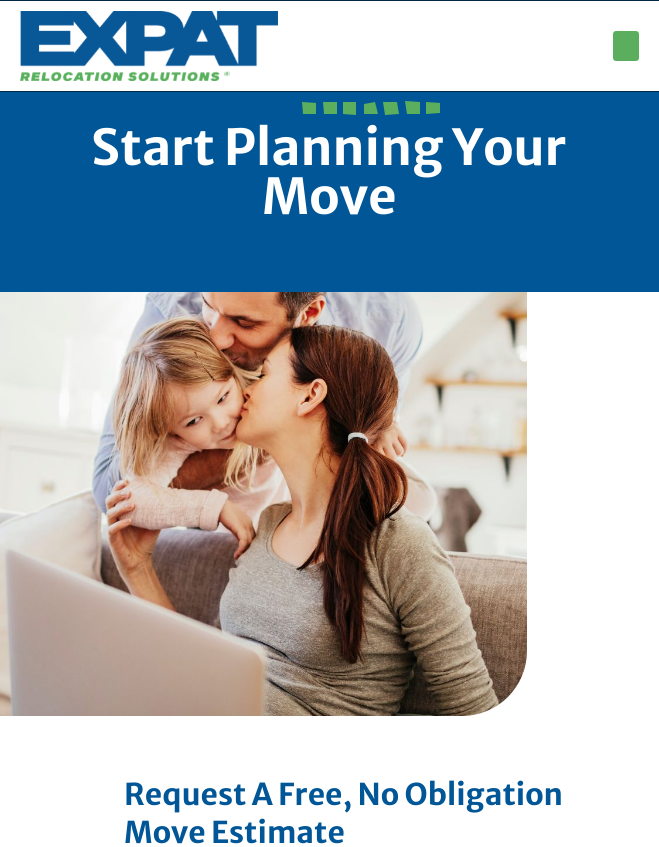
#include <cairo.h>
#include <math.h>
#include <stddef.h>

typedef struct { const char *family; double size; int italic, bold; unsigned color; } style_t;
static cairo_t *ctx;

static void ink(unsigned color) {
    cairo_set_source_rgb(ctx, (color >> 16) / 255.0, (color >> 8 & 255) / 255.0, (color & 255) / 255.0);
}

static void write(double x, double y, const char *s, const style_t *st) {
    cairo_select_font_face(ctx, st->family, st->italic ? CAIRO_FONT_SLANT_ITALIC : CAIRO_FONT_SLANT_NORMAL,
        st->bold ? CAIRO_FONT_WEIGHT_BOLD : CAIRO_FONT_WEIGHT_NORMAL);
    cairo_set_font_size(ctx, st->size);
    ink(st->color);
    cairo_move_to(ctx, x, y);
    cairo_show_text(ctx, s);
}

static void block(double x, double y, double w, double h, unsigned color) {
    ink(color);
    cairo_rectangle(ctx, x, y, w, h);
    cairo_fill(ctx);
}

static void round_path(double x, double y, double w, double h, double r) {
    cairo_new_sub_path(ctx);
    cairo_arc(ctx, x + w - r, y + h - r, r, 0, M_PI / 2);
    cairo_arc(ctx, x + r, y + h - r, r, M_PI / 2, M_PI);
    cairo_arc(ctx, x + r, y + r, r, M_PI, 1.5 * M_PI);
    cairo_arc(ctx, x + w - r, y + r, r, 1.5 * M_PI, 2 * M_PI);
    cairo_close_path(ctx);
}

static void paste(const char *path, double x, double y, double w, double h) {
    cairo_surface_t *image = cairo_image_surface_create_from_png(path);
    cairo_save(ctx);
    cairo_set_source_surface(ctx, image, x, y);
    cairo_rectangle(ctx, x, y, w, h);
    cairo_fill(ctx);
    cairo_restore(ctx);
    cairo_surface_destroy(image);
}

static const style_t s1 = {"Merriweather Sans", 49.5, 0, 1, 0xffffff};
static const style_t s2 = {"Merriweather Sans", 30, 0, 1, 0x005696};

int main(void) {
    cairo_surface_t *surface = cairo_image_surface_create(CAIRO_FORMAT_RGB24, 659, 847);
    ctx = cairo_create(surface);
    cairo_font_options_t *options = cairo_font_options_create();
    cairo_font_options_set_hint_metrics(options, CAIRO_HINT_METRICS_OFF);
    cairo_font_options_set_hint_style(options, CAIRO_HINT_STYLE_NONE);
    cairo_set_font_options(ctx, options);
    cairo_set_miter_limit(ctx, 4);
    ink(0xffffff);
    cairo_paint(ctx);
    block(0, 0, 659, 1, 0x002744);
    block(0, 91, 659, 1, 0x002744);
    paste("pic1.png", 20, 11, 258, 70);
    ink(0x5bae5d);
    round_path(613, 31, 26, 30, 3);
    cairo_fill(ctx);
    block(0, 92, 659, 200, 0x005696);
    ink(0x5bae5d);
    cairo_new_path(ctx);
    cairo_move_to(ctx, 356, 102);
    cairo_line_to(ctx, 356, 115);
    cairo_line_to(ctx, 343, 114);
    cairo_line_to(ctx, 343, 102);
    cairo_close_path(ctx);
    cairo_move_to(ctx, 397, 102);
    cairo_line_to(ctx, 399, 114);
    cairo_line_to(ctx, 385, 115);
    cairo_line_to(ctx, 383, 102);
    cairo_close_path(ctx);
    cairo_move_to(ctx, 302, 102);
    cairo_line_to(ctx, 316, 103);
    cairo_line_to(ctx, 316, 114);
    cairo_line_to(ctx, 303, 114);
    cairo_close_path(ctx);
    cairo_move_to(ctx, 337, 102);
    cairo_line_to(ctx, 337, 114);
    cairo_line_to(ctx, 324, 114);
    cairo_line_to(ctx, 323, 102);
    cairo_close_path(ctx);
    cairo_move_to(ctx, 375, 102);
    cairo_line_to(ctx, 378, 114);
    cairo_line_to(ctx, 364, 114);
    cairo_line_to(ctx, 364, 104);
    cairo_close_path(ctx);
    cairo_move_to(ctx, 405, 101);
    cairo_line_to(ctx, 420, 102);
    cairo_line_to(ctx, 420, 114);
    cairo_line_to(ctx, 407, 114);
    cairo_close_path(ctx);
    cairo_move_to(ctx, 426, 102);
    cairo_line_to(ctx, 440, 103);
    cairo_line_to(ctx, 440, 113);
    cairo_line_to(ctx, 426, 114);
    cairo_close_path(ctx);
    cairo_fill(ctx);
    write(91, 165, "Start Planning Your", &s1);
    write(262, 214, "Move", &s1);
    paste("pic2.png", 0, 292, 527, 424);
    write(124, 805, "Request A Free, No Obligation", &s2);
    write(124, 843, "Move Estimate", &s2);
    cairo_surface_write_to_png(surface, "screenshot.png");
    cairo_font_options_destroy(options);
    cairo_destroy(ctx);
    cairo_surface_destroy(surface);
    return 0;
}
